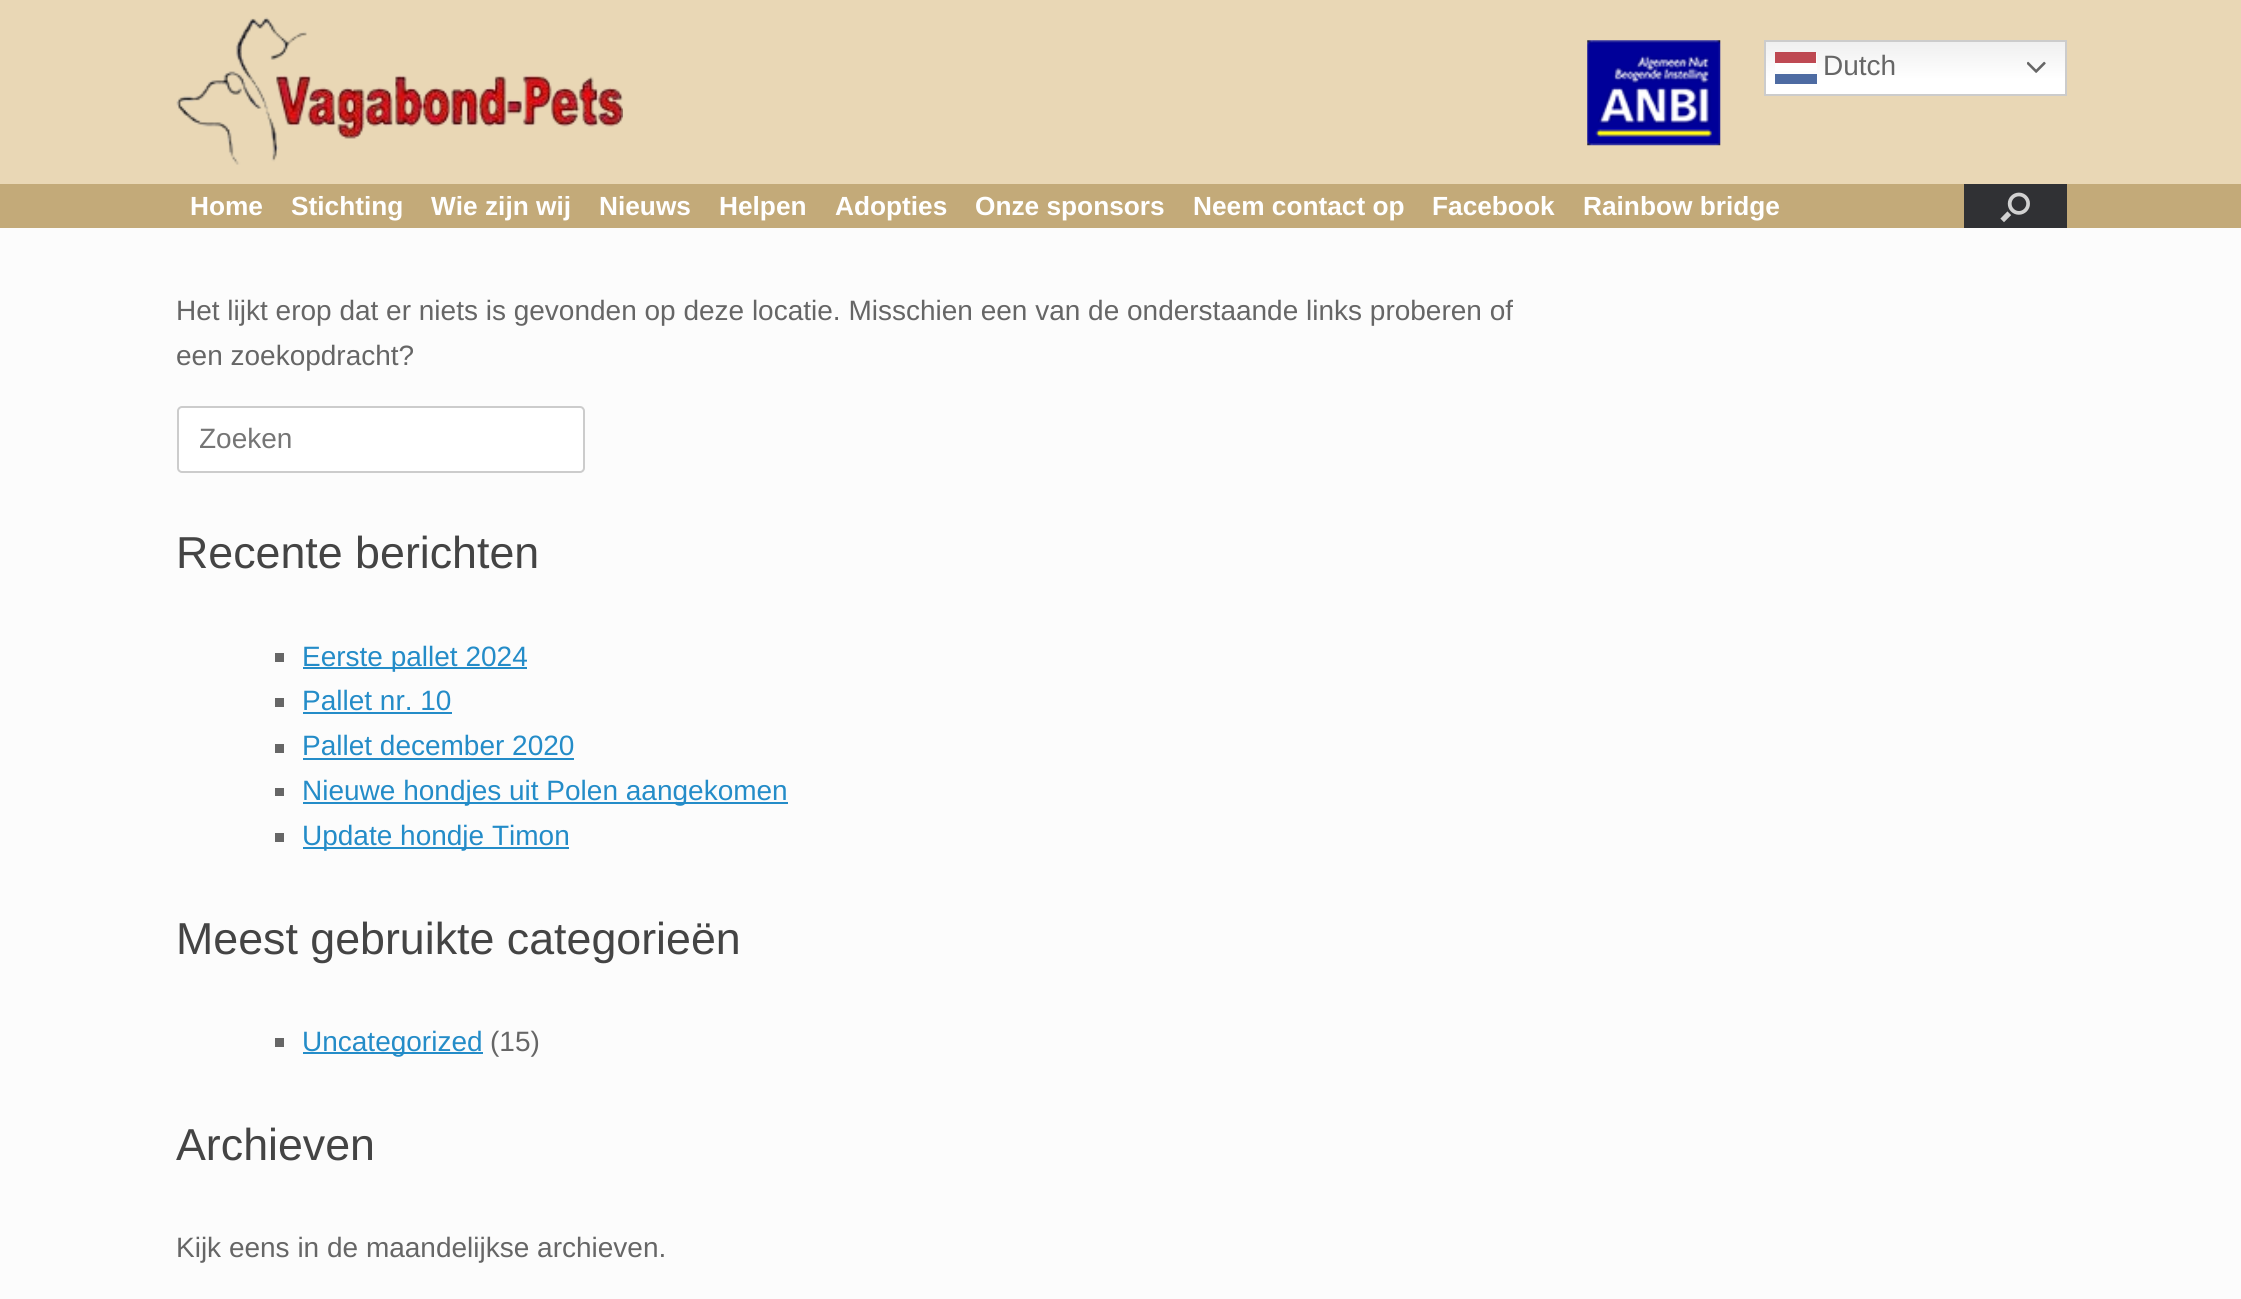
#include <cairo.h>
#include <math.h>
#include <stddef.h>

typedef struct { const char *family; double size; int italic, bold; unsigned color; } style_t;
static cairo_t *ctx;

static void ink(unsigned color) {
    cairo_set_source_rgb(ctx, (color >> 16) / 255.0, (color >> 8 & 255) / 255.0, (color & 255) / 255.0);
}

static void write(double x, double y, const char *s, const style_t *st) {
    cairo_select_font_face(ctx, st->family, st->italic ? CAIRO_FONT_SLANT_ITALIC : CAIRO_FONT_SLANT_NORMAL,
        st->bold ? CAIRO_FONT_WEIGHT_BOLD : CAIRO_FONT_WEIGHT_NORMAL);
    cairo_set_font_size(ctx, st->size);
    ink(st->color);
    cairo_move_to(ctx, x, y);
    cairo_show_text(ctx, s);
}

static void block(double x, double y, double w, double h, unsigned color) {
    ink(color);
    cairo_rectangle(ctx, x, y, w, h);
    cairo_fill(ctx);
}

static void round_path(double x, double y, double w, double h, double r) {
    cairo_new_sub_path(ctx);
    cairo_arc(ctx, x + w - r, y + h - r, r, 0, M_PI / 2);
    cairo_arc(ctx, x + r, y + h - r, r, M_PI / 2, M_PI);
    cairo_arc(ctx, x + r, y + r, r, M_PI, 1.5 * M_PI);
    cairo_arc(ctx, x + w - r, y + r, r, 1.5 * M_PI, 2 * M_PI);
    cairo_close_path(ctx);
}

static void paste(const char *path, double x, double y, double w, double h) {
    cairo_surface_t *image = cairo_image_surface_create_from_png(path);
    cairo_save(ctx);
    cairo_set_source_surface(ctx, image, x, y);
    cairo_rectangle(ctx, x, y, w, h);
    cairo_fill(ctx);
    cairo_restore(ctx);
    cairo_surface_destroy(image);
}

static const style_t s1 = {"Liberation Sans", 28, 0, 0, 0x666666};
static const style_t s2 = {"Liberation Sans", 26.25, 0, 1, 0xffffff};
static const style_t s3 = {"Liberation Sans", 28, 0, 0, 0x757575};
static const style_t s4 = {"Liberation Sans", 44.75, 0, 0, 0x444444};
static const style_t s5 = {"Liberation Sans", 28, 0, 0, 0x248cc8};

int main(void) {
    cairo_surface_t *surface = cairo_image_surface_create(CAIRO_FORMAT_RGB24, 2241, 1299);
    ctx = cairo_create(surface);
    cairo_font_options_t *options = cairo_font_options_create();
    cairo_font_options_set_hint_metrics(options, CAIRO_HINT_METRICS_OFF);
    cairo_font_options_set_hint_style(options, CAIRO_HINT_STYLE_NONE);
    cairo_set_font_options(ctx, options);
    cairo_set_miter_limit(ctx, 4);
    cairo_pattern_t *gradient;
    ink(0xe9d7b5);
    cairo_paint(ctx);
    paste("pic1.png", 176, 17, 447, 148);
    paste("pic2.png", 1587, 40, 134, 106);
    gradient = cairo_pattern_create_linear(1915, 40, 1915, 96);
    cairo_pattern_add_color_stop_rgba(gradient, 0, 0.937, 0.937, 0.937, 1);
    cairo_pattern_add_color_stop_rgba(gradient, 0.7, 1, 1, 1, 1);
    cairo_set_source(ctx, gradient);
    cairo_pattern_destroy(gradient);
    cairo_rectangle(ctx, 1766, 42, 299, 52);
    cairo_fill(ctx);
    gradient = cairo_pattern_create_linear(1915, 40, 1915, 96);
    cairo_pattern_add_color_stop_rgba(gradient, 0, 0.733, 0.275, 0.314, 1);
    cairo_pattern_add_color_stop_rgba(gradient, 0.7, 0.745, 0.286, 0.325, 1);
    cairo_set_source(ctx, gradient);
    cairo_pattern_destroy(gradient);
    cairo_rectangle(ctx, 1775, 52, 41, 1);
    cairo_fill(ctx);
    gradient = cairo_pattern_create_linear(1915, 40, 1915, 96);
    cairo_pattern_add_color_stop_rgba(gradient, 0, 0.988, 0.988, 0.988, 1);
    cairo_pattern_add_color_stop_rgba(gradient, 0.7, 1, 1, 1, 1);
    cairo_set_source(ctx, gradient);
    cairo_pattern_destroy(gradient);
    cairo_rectangle(ctx, 1775, 53, 42, 18);
    cairo_fill(ctx);
    gradient = cairo_pattern_create_linear(1915, 40, 1915, 96);
    cairo_pattern_add_color_stop_rgba(gradient, 0, 0.745, 0.286, 0.322, 1);
    cairo_pattern_add_color_stop_rgba(gradient, 0.7, 0.745, 0.286, 0.325, 1);
    cairo_set_source(ctx, gradient);
    cairo_pattern_destroy(gradient);
    cairo_rectangle(ctx, 1775, 53, 41, 10);
    cairo_fill(ctx);
    cairo_rectangle(ctx, 1765, 41, 301, 54);
    ink(0xcccccc);
    cairo_stroke(ctx);
    write(1823, 75, "Dutch", &s1);
    paste("pic3.png", 2027, 61, 19, 12);
    block(1775, 74, 42, 10, 0x4d6ba2);
    block(0, 184, 2241, 44, 0xc3aa79);
    write(190, 215, "Home", &s2);
    write(291, 215, "Stichting", &s2);
    write(431, 215, "Wie zijn wij", &s2);
    write(599, 215, "Nieuws", &s2);
    write(719, 215, "Helpen", &s2);
    write(835, 215, "Adopties", &s2);
    write(975, 215, "Onze sponsors", &s2);
    write(1193, 215, "Neem contact op", &s2);
    write(1432, 215, "Facebook", &s2);
    write(1583, 215, "Rainbow bridge", &s2);
    block(1964, 184, 103, 44, 0x303134);
    paste("pic4.png", 2000, 192, 30, 31);
    block(0, 228, 2241, 1071, 0xfcfcfc);
    write(176, 320, "Het lijkt erop dat er niets is gevonden op deze locatie. Misschien een van de onderstaande links proberen of", &s1);
    write(176, 365, "een zoekopdracht?", &s1);
    ink(0xffffff);
    round_path(178, 407, 406, 65, 4);
    cairo_fill_preserve(ctx);
    ink(0xcccccc);
    cairo_stroke(ctx);
    cairo_save(ctx);
    cairo_rectangle(ctx, 200, 424, 336, 31);
    cairo_clip(ctx);
    write(199, 448, "Zoeken", &s3);
    cairo_restore(ctx);
    write(176, 568, "Recente berichten", &s4);
    block(275, 653, 9, 9, 0x666666);
    block(303, 667, 224, 2, 0x248cc8);
    write(302, 666, "Eerste pallet 2024", &s5);
    block(275, 698, 9, 9, 0x666666);
    write(302, 710, "Pallet nr. 10", &s5);
    block(303, 712, 149, 2, 0x248cc8);
    block(275, 744, 9, 9, 0x666666);
    write(302, 755, "Pallet december 2020", &s5);
    block(303, 758, 271, 2, 0x248cc8);
    block(275, 788, 9, 8, 0x666666);
    block(303, 802, 485, 2, 0x248cc8);
    write(302, 800, "Nieuwe hondjes uit Polen aangekomen", &s5);
    block(275, 833, 9, 9, 0x666666);
    block(303, 847, 266, 2, 0x248cc8);
    write(302, 845, "Update hondje Timon", &s5);
    write(176, 954, "Meest gebruikte categorieën", &s4);
    block(275, 1038, 9, 9, 0x666666);
    block(303, 1052, 180, 2, 0x248cc8);
    write(302, 1051, "Uncategorized", &s5);
    write(490, 1051, "(15)", &s1);
    write(176, 1160, "Archieven", &s4);
    write(176, 1257, "Kijk eens in de maandelijkse archieven.", &s1);
    cairo_surface_write_to_png(surface, "screenshot.png");
    cairo_font_options_destroy(options);
    cairo_destroy(ctx);
    cairo_surface_destroy(surface);
    return 0;
}
